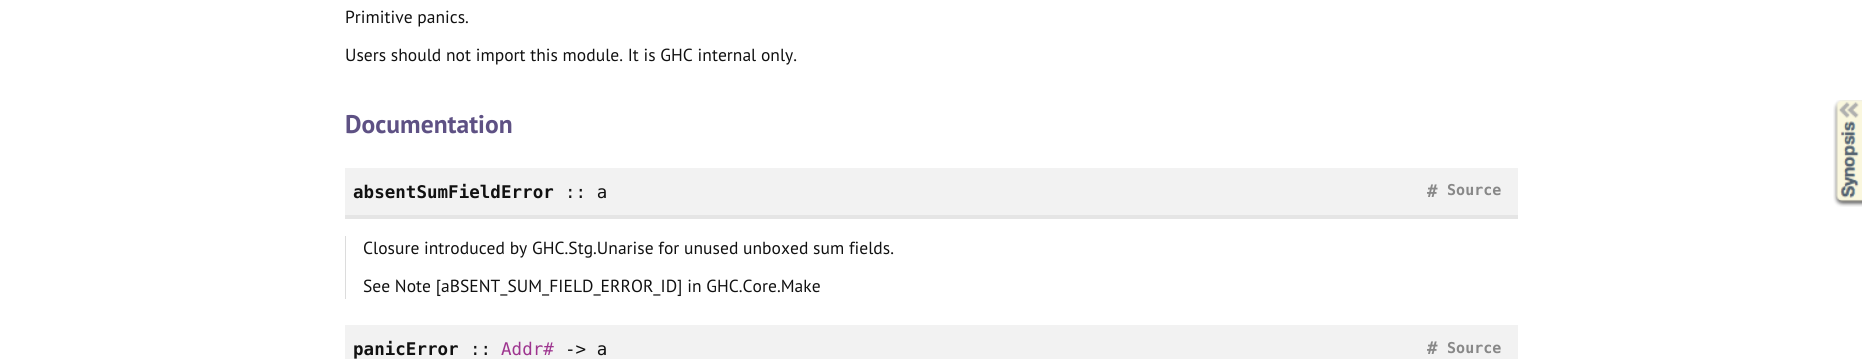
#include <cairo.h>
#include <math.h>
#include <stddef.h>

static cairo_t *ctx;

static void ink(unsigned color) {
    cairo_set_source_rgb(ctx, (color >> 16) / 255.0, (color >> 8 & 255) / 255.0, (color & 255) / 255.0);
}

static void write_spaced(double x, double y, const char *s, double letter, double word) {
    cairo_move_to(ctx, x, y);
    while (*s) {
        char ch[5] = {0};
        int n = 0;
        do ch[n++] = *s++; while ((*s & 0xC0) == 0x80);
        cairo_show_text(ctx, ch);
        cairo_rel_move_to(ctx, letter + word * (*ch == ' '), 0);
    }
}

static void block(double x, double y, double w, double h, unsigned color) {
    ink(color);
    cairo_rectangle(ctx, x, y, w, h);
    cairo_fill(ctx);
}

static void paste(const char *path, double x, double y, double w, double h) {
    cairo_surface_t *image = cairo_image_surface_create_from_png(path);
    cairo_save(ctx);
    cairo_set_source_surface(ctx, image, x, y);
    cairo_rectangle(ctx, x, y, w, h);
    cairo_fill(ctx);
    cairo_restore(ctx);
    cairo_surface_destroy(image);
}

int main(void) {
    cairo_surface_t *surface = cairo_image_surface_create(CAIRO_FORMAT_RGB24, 1862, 359);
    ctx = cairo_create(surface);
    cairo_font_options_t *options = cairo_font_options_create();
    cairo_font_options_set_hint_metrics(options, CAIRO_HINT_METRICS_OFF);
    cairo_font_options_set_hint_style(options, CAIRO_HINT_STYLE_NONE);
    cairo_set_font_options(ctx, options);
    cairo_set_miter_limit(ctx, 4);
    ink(0xffffff);
    cairo_paint(ctx);
    cairo_select_font_face(ctx, "PT Sans", CAIRO_FONT_SLANT_NORMAL, CAIRO_FONT_WEIGHT_NORMAL);
    cairo_set_font_size(ctx, 17.5);
    ink(0x111111);
    write_spaced(345, 23, "Primitive panics.", 0.03, 0);
    write_spaced(345, 61, "Users should not import this module. It is GHC internal only.", 0.03, 0);
    cairo_select_font_face(ctx, "PT Sans", CAIRO_FONT_SLANT_NORMAL, CAIRO_FONT_WEIGHT_BOLD);
    cairo_set_font_size(ctx, 25.5);
    ink(0x5e5184);
    write_spaced(345, 133, "Documentation", 0.03, 0);
    block(345, 168, 1173, 47, 0xf2f2f2);
    block(345, 215, 1173, 4, 0xe5e5e5);
    cairo_select_font_face(ctx, "DejaVu Sans Mono", CAIRO_FONT_SLANT_NORMAL, CAIRO_FONT_WEIGHT_BOLD);
    cairo_set_font_size(ctx, 17.5);
    ink(0x111111);
    write_spaced(353, 198, "absentSumFieldError", 0.03, 0);
    cairo_select_font_face(ctx, "DejaVu Sans Mono", CAIRO_FONT_SLANT_NORMAL, CAIRO_FONT_WEIGHT_NORMAL);
    write_spaced(565, 198, ":: a", 0.03, 0);
    cairo_select_font_face(ctx, "DejaVu Sans Mono", CAIRO_FONT_SLANT_NORMAL, CAIRO_FONT_WEIGHT_BOLD);
    ink(0x888888);
    write_spaced(1427, 197, "#", 0.03, 0);
    cairo_set_font_size(ctx, 15);
    write_spaced(1447, 195, "Source", 0.03, 0);
    block(345, 236, 1, 63, 0xdcdcdc);
    cairo_select_font_face(ctx, "PT Sans", CAIRO_FONT_SLANT_NORMAL, CAIRO_FONT_WEIGHT_NORMAL);
    cairo_set_font_size(ctx, 17.5);
    ink(0x111111);
    write_spaced(363, 254, "Closure introduced by GHC.Stg.Unarise for unused unboxed sum fields.", 0.03, 0);
    write_spaced(363, 292, "See Note [aBSENT_SUM_FIELD_ERROR_ID] in GHC.Core.Make", 0.03, 0);
    block(345, 325, 1173, 34, 0xf2f2f2);
    cairo_select_font_face(ctx, "DejaVu Sans Mono", CAIRO_FONT_SLANT_NORMAL, CAIRO_FONT_WEIGHT_BOLD);
    ink(0x111111);
    write_spaced(353, 355, "panicError", 0.03, 0);
    cairo_select_font_face(ctx, "DejaVu Sans Mono", CAIRO_FONT_SLANT_NORMAL, CAIRO_FONT_WEIGHT_NORMAL);
    write_spaced(470, 355, "::", 0.03, 0);
    ink(0x9e358f);
    write_spaced(501, 355, "Addr#", 0.03, 0);
    ink(0x111111);
    write_spaced(565, 355, "-> a", 0.03, 0);
    cairo_select_font_face(ctx, "DejaVu Sans Mono", CAIRO_FONT_SLANT_NORMAL, CAIRO_FONT_WEIGHT_BOLD);
    ink(0x888888);
    write_spaced(1427, 354, "#", 0.03, 0);
    cairo_set_font_size(ctx, 15);
    write_spaced(1447, 353, "Source", 0.03, 0);
    paste("pic1.png", 1833, 100, 29, 107);
    cairo_surface_write_to_png(surface, "screenshot.png");
    cairo_font_options_destroy(options);
    cairo_destroy(ctx);
    cairo_surface_destroy(surface);
    return 0;
}
